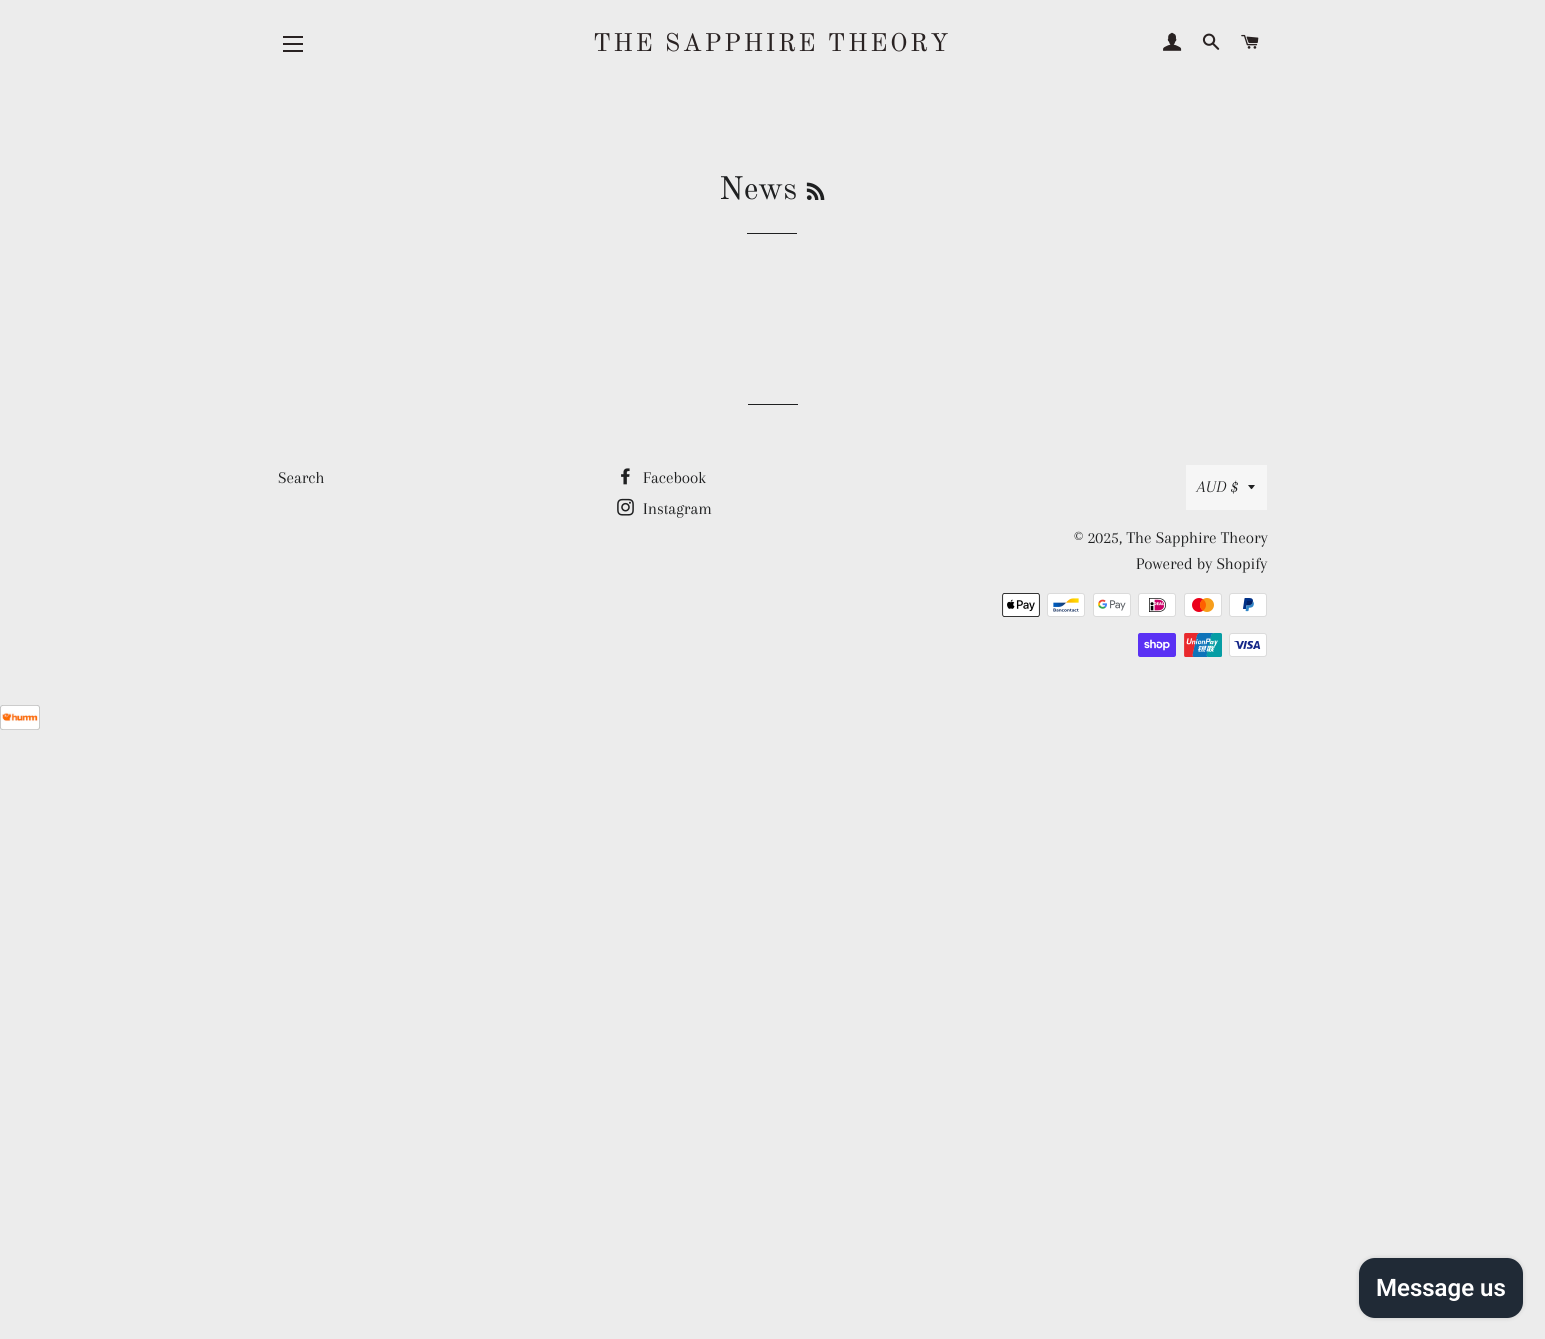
#include <cairo.h>
#include <math.h>
#include <stddef.h>

typedef struct { const char *family; double size; int italic, bold; unsigned color; } style_t;
static cairo_t *ctx;

static void ink(unsigned color) {
    cairo_set_source_rgb(ctx, (color >> 16) / 255.0, (color >> 8 & 255) / 255.0, (color & 255) / 255.0);
}

static void write(double x, double y, const char *s, const style_t *st) {
    cairo_select_font_face(ctx, st->family, st->italic ? CAIRO_FONT_SLANT_ITALIC : CAIRO_FONT_SLANT_NORMAL,
        st->bold ? CAIRO_FONT_WEIGHT_BOLD : CAIRO_FONT_WEIGHT_NORMAL);
    cairo_set_font_size(ctx, st->size);
    ink(st->color);
    cairo_move_to(ctx, x, y);
    cairo_show_text(ctx, s);
}

static void write_spaced(double x, double y, const char *s, double letter, double word) {
    cairo_move_to(ctx, x, y);
    while (*s) {
        char ch[5] = {0};
        int n = 0;
        do ch[n++] = *s++; while ((*s & 0xC0) == 0x80);
        cairo_show_text(ctx, ch);
        cairo_rel_move_to(ctx, letter + word * (*ch == ' '), 0);
    }
}

static void block(double x, double y, double w, double h, unsigned color) {
    ink(color);
    cairo_rectangle(ctx, x, y, w, h);
    cairo_fill(ctx);
}

static void round_path(double x, double y, double w, double h, double r) {
    cairo_new_sub_path(ctx);
    cairo_arc(ctx, x + w - r, y + h - r, r, 0, M_PI / 2);
    cairo_arc(ctx, x + r, y + h - r, r, M_PI / 2, M_PI);
    cairo_arc(ctx, x + r, y + r, r, M_PI, 1.5 * M_PI);
    cairo_arc(ctx, x + w - r, y + r, r, 1.5 * M_PI, 2 * M_PI);
    cairo_close_path(ctx);
}

static void blur_box(double x, double y, double w, double h, double r, double blur, double alpha) {
    cairo_push_group_with_content(ctx, CAIRO_CONTENT_ALPHA);
    cairo_set_operator(ctx, CAIRO_OPERATOR_SOURCE);
    for (int i = 15; i >= -15 && fmin(w, h) + blur * i / 3 > 0; i -= 2) {
        double e = blur * i / 6;
        cairo_set_source_rgba(ctx, 0, 0, 0, alpha * erfc((i - 1) / 8.5) / 2);
        round_path(x - e, y - e, w + 2 * e, h + 2 * e, fmax(0, fmin(r + e + blur * .6, fmin(w, h) / 2 + e)));
        cairo_fill(ctx);
    }
    cairo_pattern_t *soft = cairo_pop_group(ctx);
    cairo_mask(ctx, soft);
    cairo_pattern_destroy(soft);
}

static void paste(const char *path, double x, double y, double w, double h) {
    cairo_surface_t *image = cairo_image_surface_create_from_png(path);
    cairo_save(ctx);
    cairo_set_source_surface(ctx, image, x, y);
    cairo_rectangle(ctx, x, y, w, h);
    cairo_fill(ctx);
    cairo_restore(ctx);
    cairo_surface_destroy(image);
}

static const style_t s1 = {"Old Standard TT", 32, 0, 0, 0x1f2021};
static const style_t s2 = {"Arapey", 17, 0, 0, 0x1f2021};
static const style_t s3 = {"Arapey", 17, 1, 0, 0x1f2021};
static const style_t s4 = {"Roboto SemiBold", 24, 0, 0, 0xffffff};

int main(void) {
    cairo_surface_t *surface = cairo_image_surface_create(CAIRO_FORMAT_RGB24, 1545, 1339);
    ctx = cairo_create(surface);
    cairo_font_options_t *options = cairo_font_options_create();
    cairo_font_options_set_hint_metrics(options, CAIRO_HINT_METRICS_OFF);
    cairo_font_options_set_hint_style(options, CAIRO_HINT_STYLE_NONE);
    cairo_set_font_options(ctx, options);
    cairo_set_miter_limit(ctx, 4);
    ink(0xececec);
    cairo_paint(ctx);
    block(283, 36, 20, 2, 0x292222);
    block(283, 43, 20, 2, 0x292222);
    block(283, 50, 20, 2, 0x292222);
    cairo_select_font_face(ctx, "Old Standard TT", CAIRO_FONT_SLANT_NORMAL, CAIRO_FONT_WEIGHT_NORMAL);
    cairo_set_font_size(ctx, 25);
    write_spaced(593, 51, "THE SAPPHIRE THEORY", 2.5, 0);
    paste("pic1.png", 1163, 32, 19, 19);
    paste("pic2.png", 1202, 33, 18, 17);
    paste("pic3.png", 1241, 34, 18, 15);
    write(719, 199, "News", &s1);
    paste("pic4.png", 806, 182, 19, 18);
    block(747, 233, 50, 1, 0x1f2021);
    block(748, 404, 50, 1, 0x1f2021);
    write(278, 483, "Search", &s2);
    paste("pic5.png", 621, 468, 9, 17);
    write(643, 483, "Facebook", &s2);
    paste("pic6.png", 617, 498, 17, 18);
    write(643, 514, "Instagram", &s2);
    block(1186, 465, 81, 45, 0xf6f6f6);
    ink(0x1f2021);
    cairo_new_path(ctx);
    cairo_move_to(ctx, 1248, 485);
    cairo_curve_to(ctx, 1252.5, 490.5, 1250.5, 490.5, 1255, 485);
    cairo_close_path(ctx);
    cairo_fill(ctx);
    write(1197, 492, "AUD $", &s3);
    write(1074, 543, "© 2025, The Sapphire Theory", &s2);
    write(1136, 569, "Powered by Shopify", &s2);
    paste("pic7.png", 1002, 593, 38, 24);
    paste("pic8.png", 1047, 593, 38, 24);
    paste("pic9.png", 1093, 593, 38, 24);
    paste("pic10.png", 1138, 593, 38, 24);
    paste("pic11.png", 1184, 593, 38, 24);
    paste("pic12.png", 1229, 593, 38, 24);
    paste("pic13.png", 1138, 633, 38, 24);
    paste("pic14.png", 1184, 633, 38, 24);
    paste("pic15.png", 1229, 633, 38, 24);
    paste("pic16.png", 0, 705, 40, 25);
    ink(0x000000);
    blur_box(1359, 1258, 164, 60, 16, 2.5, 0.15);
    ink(0x202a36);
    round_path(1359, 1258, 164, 60, 16);
    cairo_fill(ctx);
    write(1376, 1296, "Message us", &s4);
    cairo_surface_write_to_png(surface, "screenshot.png");
    cairo_font_options_destroy(options);
    cairo_destroy(ctx);
    cairo_surface_destroy(surface);
    return 0;
}
